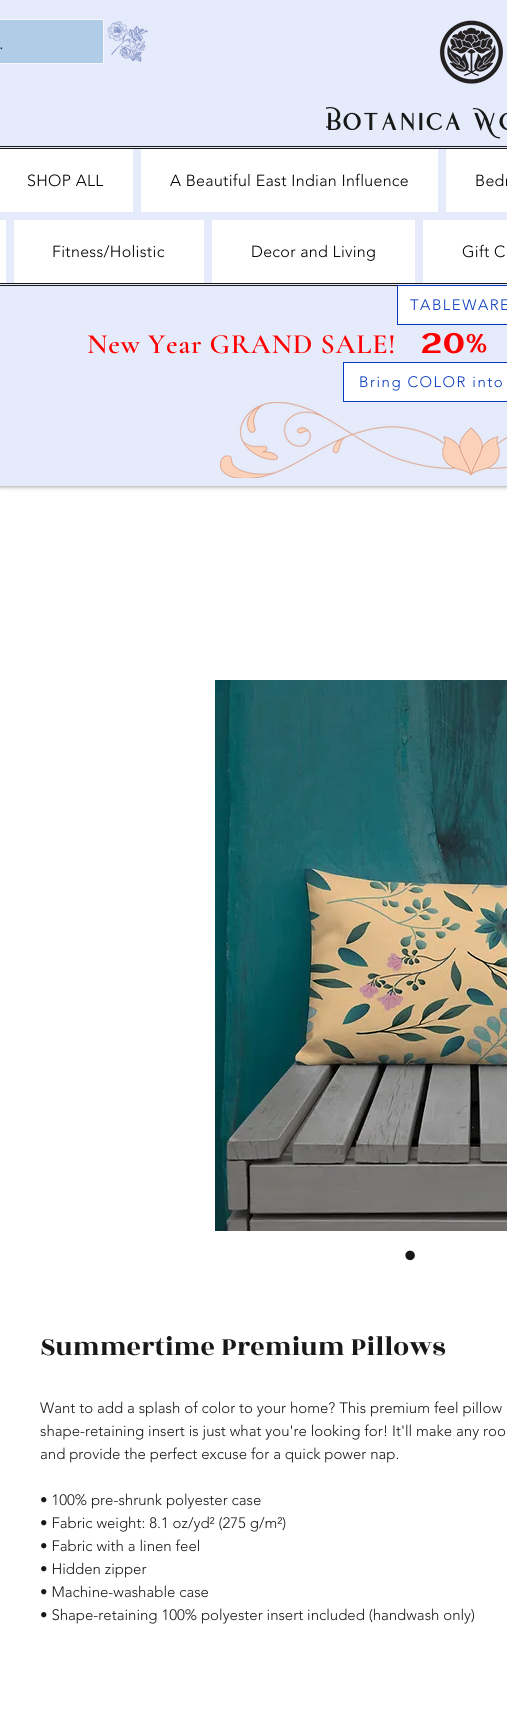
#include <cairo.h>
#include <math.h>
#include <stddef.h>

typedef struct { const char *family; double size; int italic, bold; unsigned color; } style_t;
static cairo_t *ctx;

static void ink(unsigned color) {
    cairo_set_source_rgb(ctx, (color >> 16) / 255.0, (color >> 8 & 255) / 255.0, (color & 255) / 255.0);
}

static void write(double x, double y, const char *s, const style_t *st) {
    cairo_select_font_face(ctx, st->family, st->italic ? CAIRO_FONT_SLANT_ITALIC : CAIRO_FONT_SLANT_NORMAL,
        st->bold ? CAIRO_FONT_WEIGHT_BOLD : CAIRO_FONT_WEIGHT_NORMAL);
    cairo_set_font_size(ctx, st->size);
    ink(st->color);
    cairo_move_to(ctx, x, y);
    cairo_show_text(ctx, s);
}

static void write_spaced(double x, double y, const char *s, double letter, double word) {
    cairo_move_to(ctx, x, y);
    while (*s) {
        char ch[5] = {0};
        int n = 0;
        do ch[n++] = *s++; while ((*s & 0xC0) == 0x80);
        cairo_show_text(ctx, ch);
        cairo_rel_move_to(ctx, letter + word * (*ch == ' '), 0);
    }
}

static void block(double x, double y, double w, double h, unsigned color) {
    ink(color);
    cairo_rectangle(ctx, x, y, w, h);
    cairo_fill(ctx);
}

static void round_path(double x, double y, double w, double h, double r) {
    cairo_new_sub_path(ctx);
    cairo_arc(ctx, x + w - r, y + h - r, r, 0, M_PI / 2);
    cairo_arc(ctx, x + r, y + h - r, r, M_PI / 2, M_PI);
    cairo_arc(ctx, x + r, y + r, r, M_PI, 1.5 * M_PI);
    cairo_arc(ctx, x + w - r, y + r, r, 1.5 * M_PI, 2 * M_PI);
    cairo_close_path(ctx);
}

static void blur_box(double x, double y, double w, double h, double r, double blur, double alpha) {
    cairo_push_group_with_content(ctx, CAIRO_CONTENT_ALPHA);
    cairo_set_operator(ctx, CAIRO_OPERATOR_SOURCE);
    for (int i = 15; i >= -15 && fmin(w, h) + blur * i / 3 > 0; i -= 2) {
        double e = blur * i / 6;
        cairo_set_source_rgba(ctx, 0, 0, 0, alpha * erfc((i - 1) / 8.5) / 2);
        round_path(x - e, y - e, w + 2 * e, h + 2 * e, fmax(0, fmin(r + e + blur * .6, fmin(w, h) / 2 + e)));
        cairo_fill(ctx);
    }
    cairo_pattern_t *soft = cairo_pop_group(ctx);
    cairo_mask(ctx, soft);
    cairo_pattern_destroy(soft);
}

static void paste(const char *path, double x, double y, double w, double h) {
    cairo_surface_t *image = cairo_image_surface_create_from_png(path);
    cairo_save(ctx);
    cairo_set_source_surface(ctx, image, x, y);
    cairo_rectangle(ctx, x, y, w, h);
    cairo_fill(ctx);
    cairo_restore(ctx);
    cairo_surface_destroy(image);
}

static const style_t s1 = {"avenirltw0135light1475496 Light", 18, 0, 0, 0x181818};
static const style_t s2 = {"Liberation Sans", 35, 0, 0, 0x181818};
static const style_t s3 = {"Rozha One", 28, 0, 0, 0x181818};
static const style_t s4 = {"avenirltw0135light1475496 Light", 15, 0, 0, 0x181818};

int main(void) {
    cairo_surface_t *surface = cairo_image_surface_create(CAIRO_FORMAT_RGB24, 507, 1719);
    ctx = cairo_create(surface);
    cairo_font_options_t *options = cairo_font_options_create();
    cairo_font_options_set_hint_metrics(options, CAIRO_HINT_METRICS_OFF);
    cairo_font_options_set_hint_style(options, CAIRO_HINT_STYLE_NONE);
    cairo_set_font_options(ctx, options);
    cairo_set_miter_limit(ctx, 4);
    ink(0xffffff);
    cairo_paint(ctx);
    ink(0x000000);
    blur_box(0, 0, 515, 486, 0, 2.5, 0.5);
    block(0, 0, 507, 486, 0xe5ebfa);
    cairo_rectangle(ctx, -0.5, 19.5, 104, 44);
    ink(0xf5f7fd);
    cairo_set_line_width(ctx, 1);
    cairo_stroke(ctx);
    block(0, 20, 103, 43, 0xb1cce6);
    write(-1, 49, ".", &s1);
    paste("pic1.png", 107, 21, 41, 41);
    paste("pic2.png", 439, 20, 64, 64);
    cairo_save(ctx);
    cairo_rectangle(ctx, 326, 104, 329, 40);
    cairo_clip(ctx);
    cairo_select_font_face(ctx, "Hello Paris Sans", CAIRO_FONT_SLANT_NORMAL, CAIRO_FONT_WEIGHT_BOLD);
    cairo_set_font_size(ctx, 33);
    write_spaced(326, 130, "Botanica Wo", 1.6, 0);
    cairo_restore(ctx);
    cairo_rectangle(ctx, -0.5, 146.5, 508, 139);
    cairo_stroke(ctx);
    cairo_rectangle(ctx, -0.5, 148.5, 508, 135);
    cairo_stroke(ctx);
    block(0, 149, 133, 63, 0xffffff);
    cairo_set_font_size(ctx, 16);
    ink(0x000000);
    write_spaced(27, 186, "SHOP ALL", 0.3, 0);
    block(141, 149, 297, 63, 0xffffff);
    ink(0x000000);
    write_spaced(170, 186, "A Beautiful East Indian Influence", 0.3, 0);
    block(446, 149, 61, 63, 0xffffff);
    ink(0x000000);
    write_spaced(475, 186, "Bedr", 0.3, 0);
    block(0, 220, 6, 63, 0xffffff);
    block(14, 220, 190, 63, 0xffffff);
    ink(0x000000);
    write_spaced(52, 257, "Fitness/Holistic", 0.3, 0);
    block(212, 220, 203, 63, 0xffffff);
    ink(0x000000);
    write_spaced(251, 257, "Decor and Living", 0.3, 0);
    block(423, 220, 84, 63, 0xffffff);
    ink(0x000000);
    write_spaced(462, 257, "Gift C", 0.3, 0);
    ink(0xffffff);
    cairo_rectangle(ctx, 397.5, 285.5, 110, 39);
    cairo_fill_preserve(ctx);
    ink(0x0639c1);
    cairo_stroke(ctx);
    cairo_set_font_size(ctx, 15);
    write_spaced(410, 310, "TABLEWARE", 1.5, 0);
    cairo_select_font_face(ctx, "Cormorant Garamond SemiBold", CAIRO_FONT_SLANT_NORMAL, CAIRO_FONT_WEIGHT_NORMAL);
    cairo_set_font_size(ctx, 28);
    ink(0xff0000);
    write_spaced(87, 353, "New Year GRAND SALE!", 0.8, 0);
    cairo_select_font_face(ctx, "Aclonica", CAIRO_FONT_SLANT_NORMAL, CAIRO_FONT_WEIGHT_NORMAL);
    write_spaced(421, 353, "20%", 0.8, 0);
    ink(0xffffff);
    cairo_rectangle(ctx, 343.5, 362.5, 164, 39);
    cairo_fill_preserve(ctx);
    ink(0x0639c1);
    cairo_stroke(ctx);
    cairo_select_font_face(ctx, "avenirltw0135light1475496 Light", CAIRO_FONT_SLANT_NORMAL, CAIRO_FONT_WEIGHT_NORMAL);
    cairo_set_font_size(ctx, 15);
    write_spaced(359, 387, "Bring COLOR into", 1.5, 0);
    paste("pic3.png", 220, 402, 287, 76);
    paste("pic4.png", 215, 680, 292, 551);
    write(404, 1267, "•", &s2);
    write(40, 1355, "Summertime Premium Pillows", &s3);
    write(40, 1413, "Want to add a splash of color to your home? This premium feel pillow", &s4);
    write(40, 1436, "shape-retaining insert is just what you're looking for! It'll make any roo", &s4);
    write(40, 1459, "and provide the perfect excuse for a quick power nap.", &s4);
    write(40, 1505, "• 100% pre-shrunk polyester case", &s4);
    write(40, 1528, "• Fabric weight: 8.1 oz/yd² (275 g/m²)", &s4);
    write(40, 1551, "• Fabric with a linen feel", &s4);
    write(40, 1574, "• Hidden zipper", &s4);
    write(40, 1597, "• Machine-washable case", &s4);
    write(40, 1620, "• Shape-retaining 100% polyester insert included (handwash only)", &s4);
    cairo_surface_write_to_png(surface, "screenshot.png");
    cairo_font_options_destroy(options);
    cairo_destroy(ctx);
    cairo_surface_destroy(surface);
    return 0;
}
